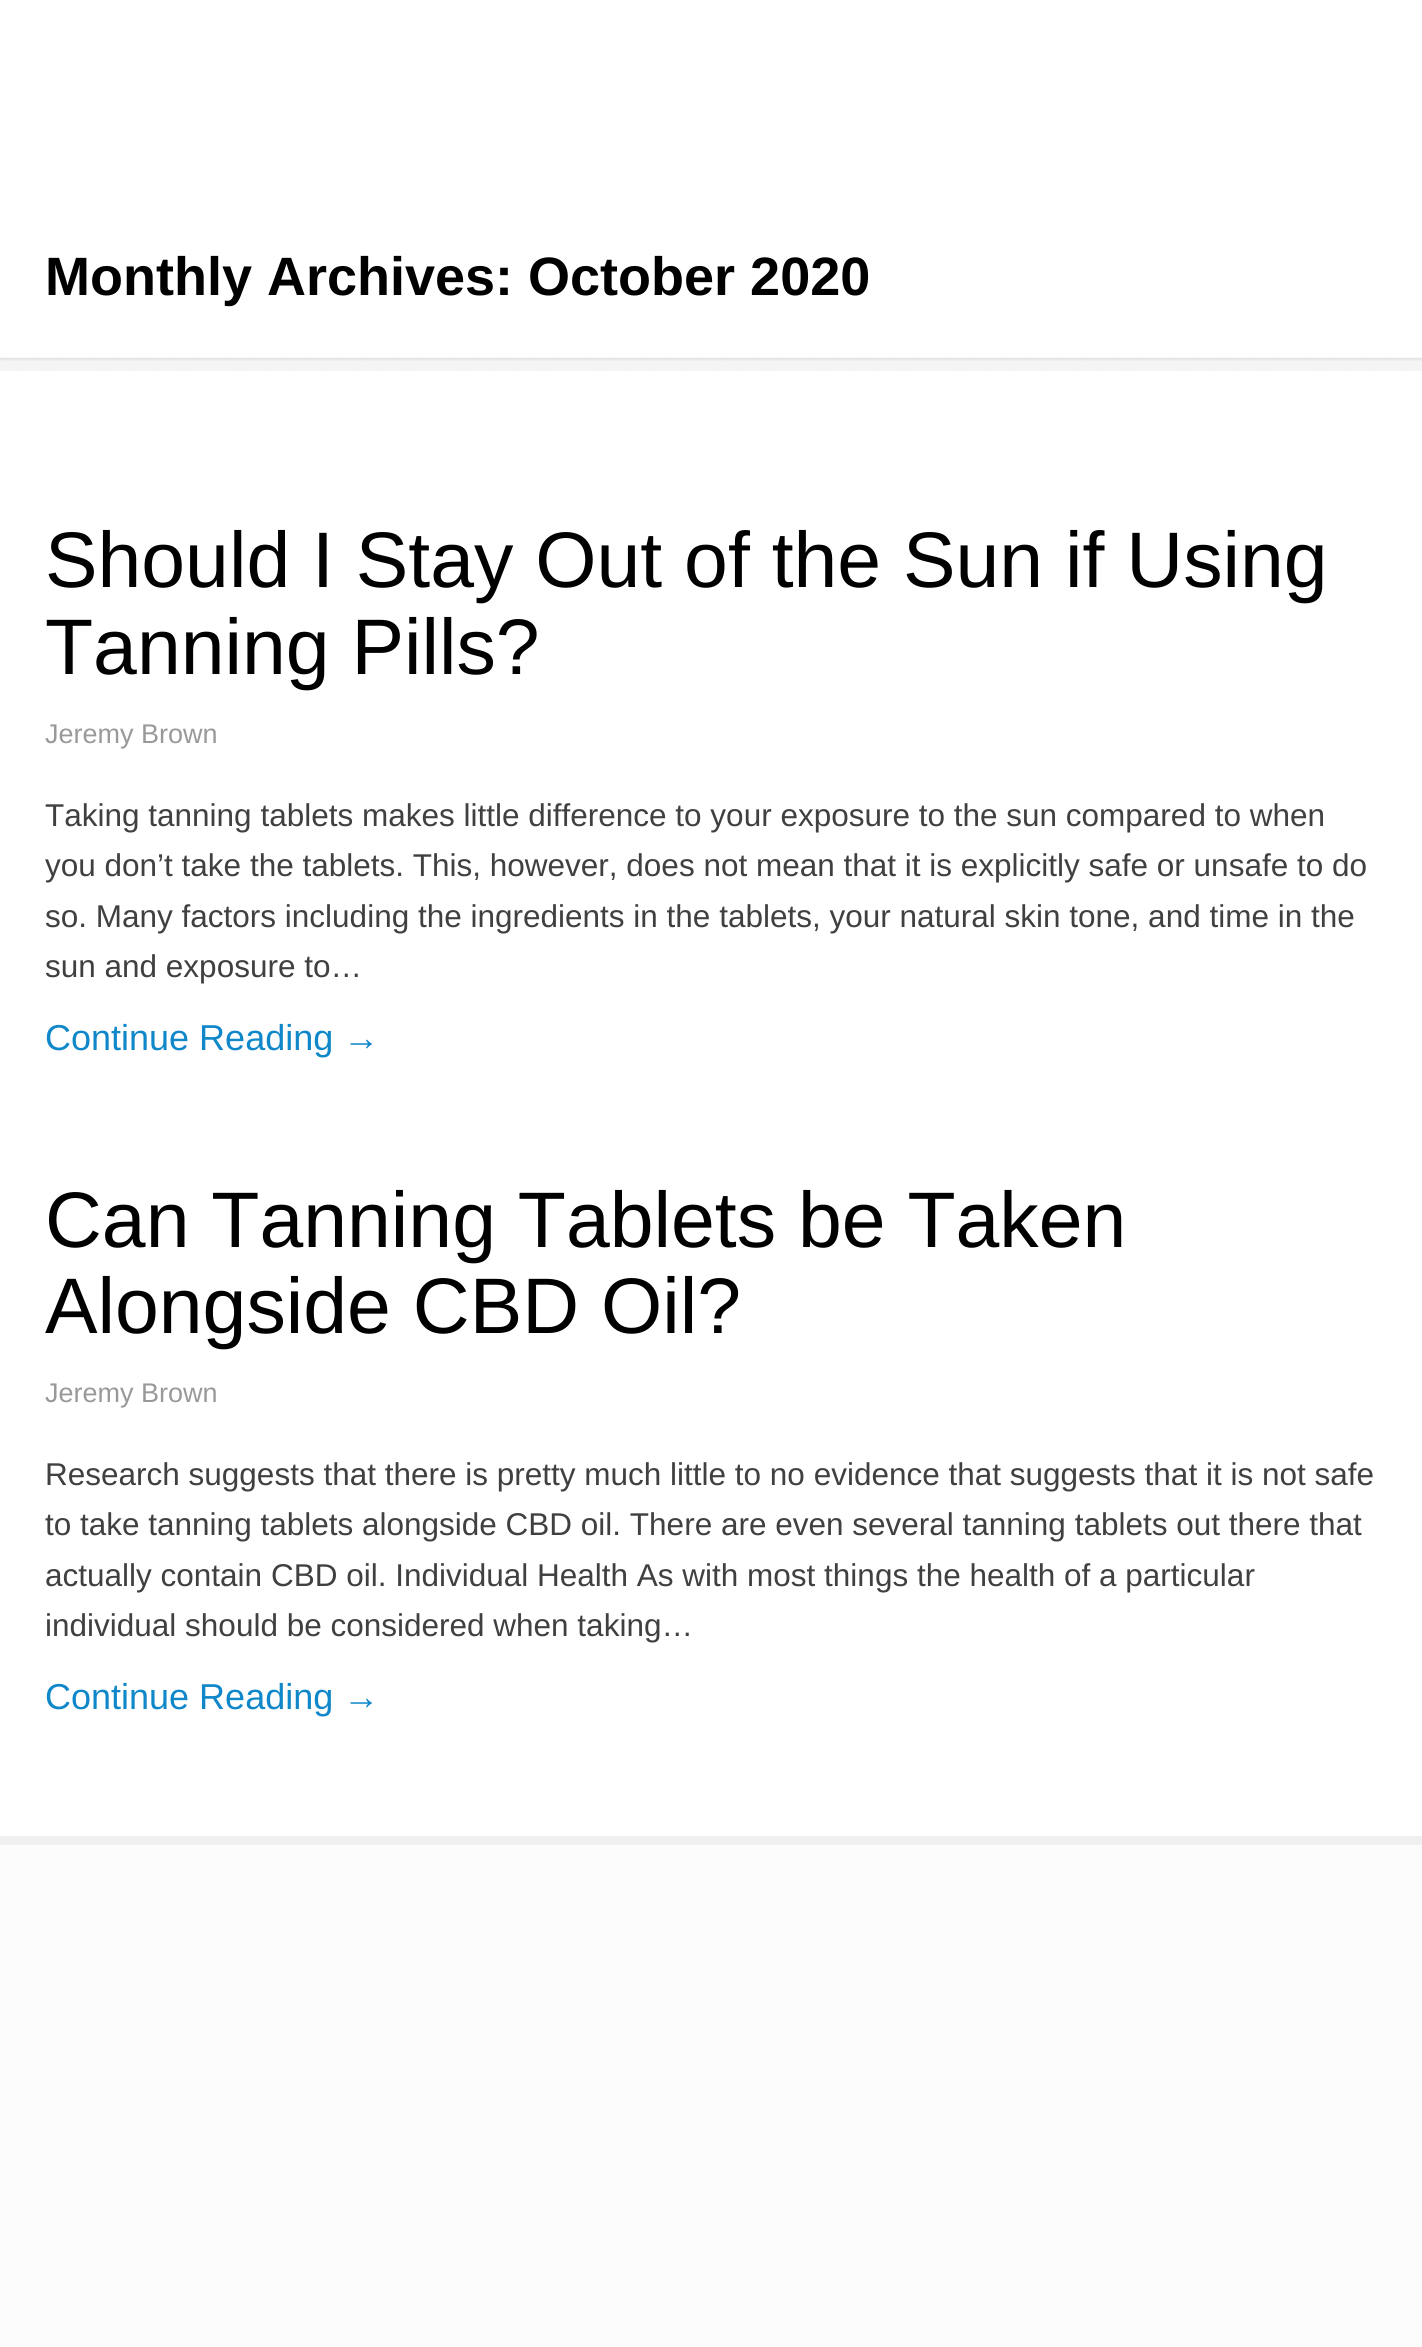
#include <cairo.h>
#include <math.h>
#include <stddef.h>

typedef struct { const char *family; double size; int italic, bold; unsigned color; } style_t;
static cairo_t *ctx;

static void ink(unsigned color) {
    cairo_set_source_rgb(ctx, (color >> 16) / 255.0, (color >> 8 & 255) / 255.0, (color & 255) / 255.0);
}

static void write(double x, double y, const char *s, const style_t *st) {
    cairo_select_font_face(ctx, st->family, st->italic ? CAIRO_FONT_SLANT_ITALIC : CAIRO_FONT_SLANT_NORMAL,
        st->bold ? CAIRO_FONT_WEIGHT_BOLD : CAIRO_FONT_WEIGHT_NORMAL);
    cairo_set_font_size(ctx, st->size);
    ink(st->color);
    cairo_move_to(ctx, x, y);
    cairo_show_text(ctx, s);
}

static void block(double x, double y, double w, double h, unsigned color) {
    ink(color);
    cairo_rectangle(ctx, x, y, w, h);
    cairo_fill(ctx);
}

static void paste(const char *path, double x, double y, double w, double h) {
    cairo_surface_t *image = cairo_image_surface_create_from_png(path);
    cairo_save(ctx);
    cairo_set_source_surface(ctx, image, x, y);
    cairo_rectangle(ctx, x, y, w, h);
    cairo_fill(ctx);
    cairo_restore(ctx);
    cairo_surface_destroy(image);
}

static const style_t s1 = {"Liberation Sans", 54, 0, 1, 0x000000};
static const style_t s2 = {"Liberation Sans", 78.75, 0, 0, 0x000000};
static const style_t s3 = {"Liberation Sans", 27, 0, 0, 0x999999};
static const style_t s4 = {"Liberation Sans", 31.5, 0, 0, 0x404040};
static const style_t s5 = {"Liberation Sans", 36, 0, 0, 0x0f87c9};

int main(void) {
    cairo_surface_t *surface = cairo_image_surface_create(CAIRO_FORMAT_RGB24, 1422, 2347);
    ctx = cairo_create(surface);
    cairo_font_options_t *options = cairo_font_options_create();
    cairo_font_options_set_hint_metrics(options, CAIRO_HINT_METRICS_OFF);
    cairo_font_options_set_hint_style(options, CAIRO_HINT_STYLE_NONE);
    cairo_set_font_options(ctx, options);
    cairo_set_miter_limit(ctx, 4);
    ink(0xffffff);
    cairo_paint(ctx);
    paste("pic1.png", 0, 357, 1422, 14);
    write(45, 295, "Monthly Archives: October 2020", &s1);
    write(45, 587, "Should I Stay Out of the Sun if Using", &s2);
    write(45, 674, "Tanning Pills?", &s2);
    write(45, 743, "Jeremy Brown", &s3);
    write(45, 826, "Taking tanning tablets makes little difference to your exposure to the sun compared to when", &s4);
    write(45, 876, "you don’t take the tablets. This, however, does not mean that it is explicitly safe or unsafe to do", &s4);
    write(45, 927, "so. Many factors including the ingredients in the tablets, your natural skin tone, and time in the", &s4);
    write(45, 977, "sun and exposure to…", &s4);
    write(45, 1050, "Continue Reading →", &s5);
    write(45, 1247, "Can Tanning Tablets be Taken", &s2);
    write(45, 1333, "Alongside CBD Oil?", &s2);
    write(45, 1402, "Jeremy Brown", &s3);
    write(45, 1485, "Research suggests that there is pretty much little to no evidence that suggests that it is not safe", &s4);
    write(45, 1535, "to take tanning tablets alongside CBD oil. There are even several tanning tablets out there that", &s4);
    write(45, 1586, "actually contain CBD oil. Individual Health As with most things the health of a particular", &s4);
    write(45, 1636, "individual should be considered when taking…", &s4);
    write(45, 1709, "Continue Reading →", &s5);
    block(0, 1845, 1422, 502, 0xfcfcfc);
    block(0, 1836, 1422, 9, 0xf0f0f0);
    cairo_surface_write_to_png(surface, "screenshot.png");
    cairo_font_options_destroy(options);
    cairo_destroy(ctx);
    cairo_surface_destroy(surface);
    return 0;
}
